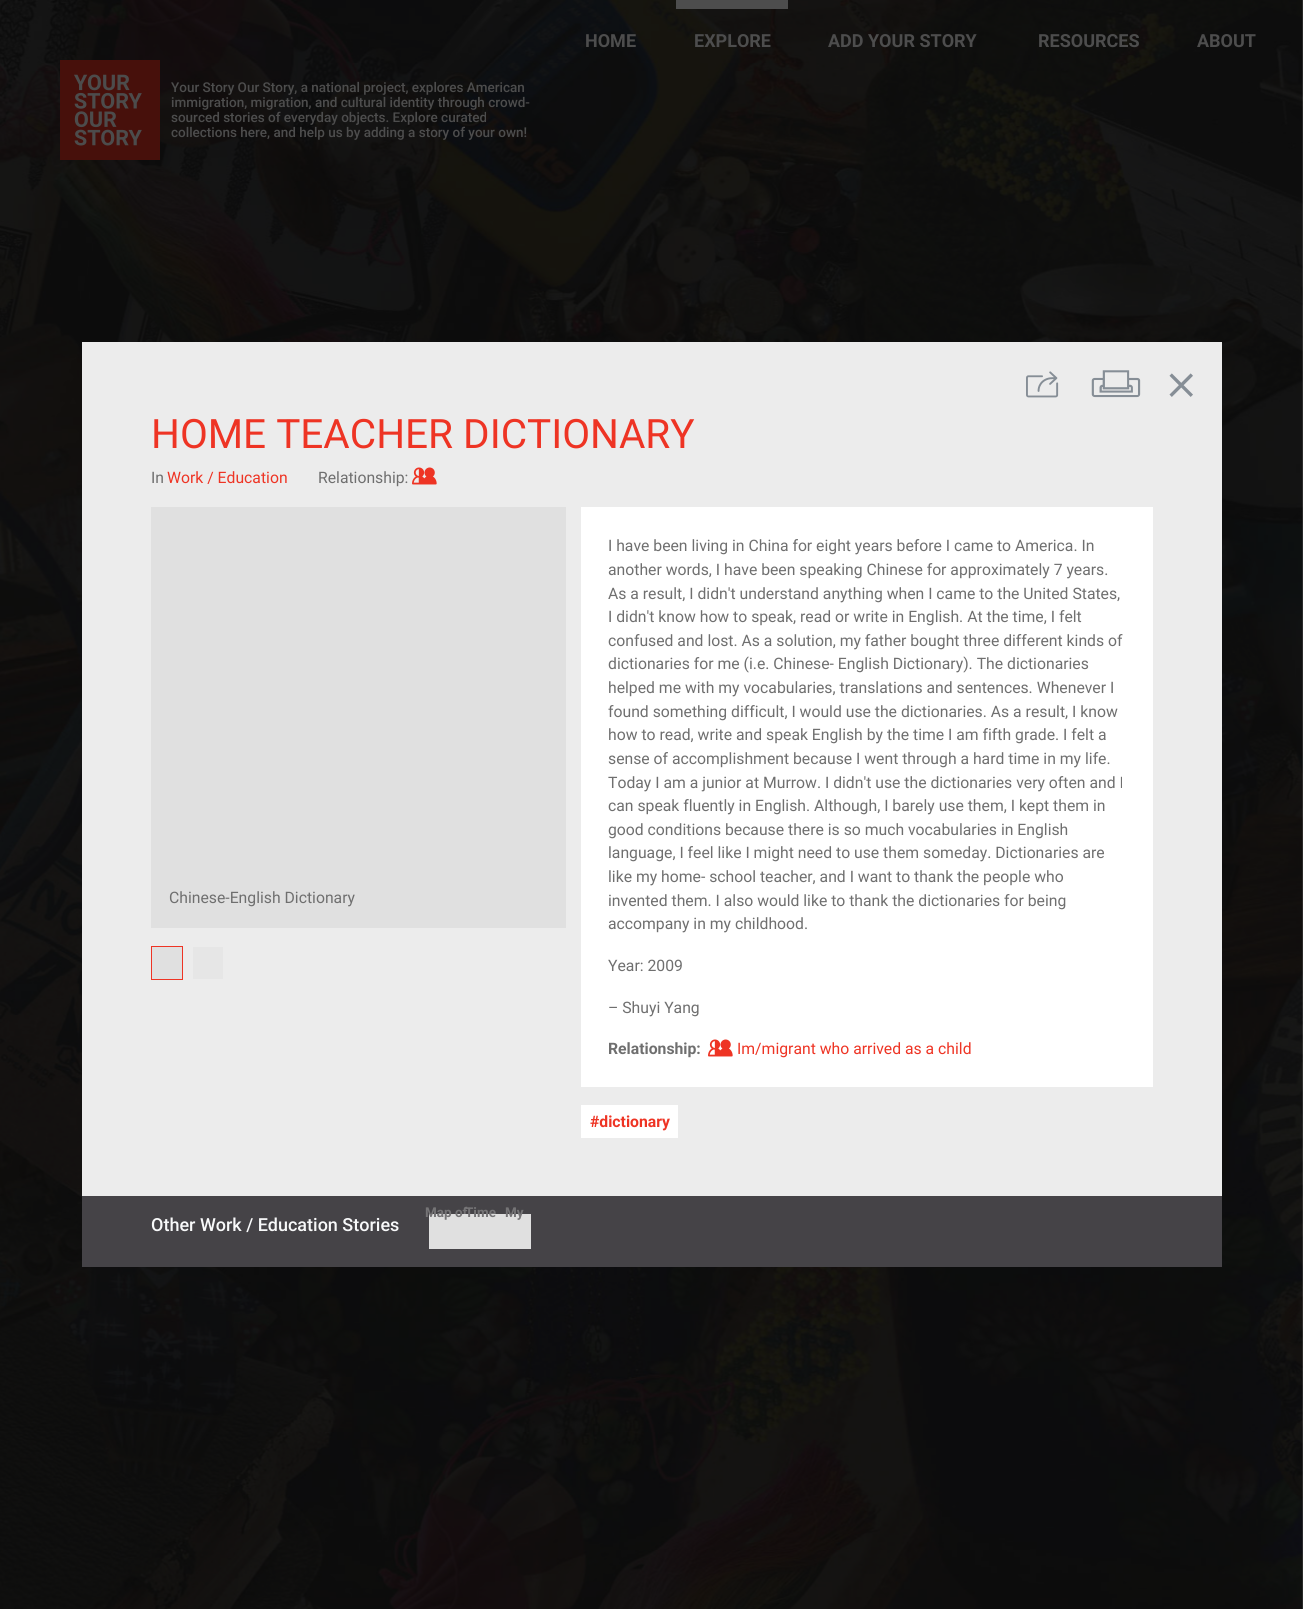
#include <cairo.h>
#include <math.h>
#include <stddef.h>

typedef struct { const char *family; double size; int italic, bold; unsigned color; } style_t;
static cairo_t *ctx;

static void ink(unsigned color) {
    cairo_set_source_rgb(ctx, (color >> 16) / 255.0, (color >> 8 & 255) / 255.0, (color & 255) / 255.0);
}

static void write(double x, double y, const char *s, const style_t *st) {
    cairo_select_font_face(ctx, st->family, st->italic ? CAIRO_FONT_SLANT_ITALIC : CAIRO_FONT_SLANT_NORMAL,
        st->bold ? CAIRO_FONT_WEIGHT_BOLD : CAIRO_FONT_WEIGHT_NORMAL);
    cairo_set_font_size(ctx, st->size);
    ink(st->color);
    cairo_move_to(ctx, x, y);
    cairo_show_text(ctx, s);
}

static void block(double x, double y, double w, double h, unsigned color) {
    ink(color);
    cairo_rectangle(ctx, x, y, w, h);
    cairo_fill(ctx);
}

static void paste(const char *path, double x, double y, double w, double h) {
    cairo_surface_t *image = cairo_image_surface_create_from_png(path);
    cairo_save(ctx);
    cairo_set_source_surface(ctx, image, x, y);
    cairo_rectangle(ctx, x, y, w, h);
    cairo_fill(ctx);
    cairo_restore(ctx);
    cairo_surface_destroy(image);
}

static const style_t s1 = {"Roboto", 18, 0, 1, 0x4d4d4d};
static const style_t s2 = {"Roboto Medium", 13.5, 0, 0, 0x4d4d4d};
static const style_t s3 = {"Roboto", 40.5, 0, 0, 0xee3424};
static const style_t s4 = {"Roboto", 15.75, 0, 0, 0x6f6f6f};
static const style_t s5 = {"Roboto", 15.75, 0, 0, 0xee3424};
static const style_t s6 = {"Roboto", 15.75, 0, 1, 0x6f6f6f};
static const style_t s7 = {"Roboto", 15.75, 0, 1, 0xee3424};
static const style_t s8 = {"Roboto", 13.5, 0, 1, 0x757476};
static const style_t s9 = {"Roboto Medium", 18, 0, 0, 0xf8f9fa};

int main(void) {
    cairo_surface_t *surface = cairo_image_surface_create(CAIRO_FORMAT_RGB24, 1303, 1609);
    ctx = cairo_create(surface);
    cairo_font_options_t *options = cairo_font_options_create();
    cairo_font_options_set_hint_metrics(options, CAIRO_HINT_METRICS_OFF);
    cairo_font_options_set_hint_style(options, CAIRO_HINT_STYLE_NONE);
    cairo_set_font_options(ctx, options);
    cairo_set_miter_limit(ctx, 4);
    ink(0xffffff);
    cairo_paint(ctx);
    paste("pic1.png", 0, 0, 1303, 1609);
    write(585, 47, "HOME", &s1);
    block(676, 0, 112, 9, 0x4d4d4d);
    write(694, 47, "EXPLORE", &s1);
    write(828, 47, "ADD YOUR STORY", &s1);
    write(1038, 47, "RESOURCES", &s1);
    write(1197, 47, "ABOUT", &s1);
    paste("pic2.png", 60, 60, 100, 100);
    write(171, 92, "Your Story Our Story, a national project, explores American", &s2);
    write(171, 107, "immigration, migration, and cultural identity through crowd-", &s2);
    write(171, 122, "sourced stories of everyday objects. Explore curated", &s2);
    write(171, 137, "collections here, and help us by adding a story of your own!", &s2);
    block(82, 342, 1140, 854, 0xececec);
    paste("pic3.png", 1026, 371, 33, 27);
    paste("pic4.png", 1091, 370, 50, 28);
    paste("pic5.png", 1169, 373, 24, 24);
    write(151, 448, "HOME TEACHER DICTIONARY", &s3);
    write(151, 483, "In", &s4);
    write(167, 483, "Work / Education", &s5);
    write(318, 483, "Relationship:", &s4);
    paste("pic6.png", 412, 467, 25, 18);
    block(151, 507, 415, 421, 0xe0e0e0);
    write(169, 903, "Chinese-English Dictionary", &s4);
    cairo_rectangle(ctx, 151.5, 946.5, 31, 33);
    ink(0xee3424);
    cairo_set_line_width(ctx, 1);
    cairo_stroke(ctx);
    block(152, 947, 30, 32, 0xe0e0e0);
    block(193, 947, 30, 32, 0xe6e6e6);
    block(581, 507, 572, 580, 0xffffff);
    write(608, 551, "I have been living in China for eight years before I came to America. In", &s4);
    write(608, 575, "another words, I have been speaking Chinese for approximately 7 years.", &s4);
    write(608, 599, "As a result, I didn't understand anything when I came to the United States,", &s4);
    write(608, 622, "I didn't know how to speak, read or write in English. At the time, I felt", &s4);
    write(608, 646, "confused and lost. As a solution, my father bought three different kinds of", &s4);
    write(608, 669, "dictionaries for me (i.e. Chinese- English Dictionary). The dictionaries", &s4);
    write(608, 693, "helped me with my vocabularies, translations and sentences. Whenever I", &s4);
    write(608, 717, "found something difficult, I would use the dictionaries. As a result, I know", &s4);
    write(608, 740, "how to read, write and speak English by the time I am fifth grade. I felt a", &s4);
    write(608, 764, "sense of accomplishment because I went through a hard time in my life.", &s4);
    write(608, 788, "Today I am a junior at Murrow. I didn't use the dictionaries very often and I", &s4);
    write(608, 811, "can speak fluently in English. Although, I barely use them, I kept them in", &s4);
    write(608, 835, "good conditions because there is so much vocabularies in English", &s4);
    write(608, 858, "language, I feel like I might need to use them someday. Dictionaries are", &s4);
    write(608, 882, "like my home- school teacher, and I want to thank the people who", &s4);
    write(608, 906, "invented them. I also would like to thank the dictionaries for being", &s4);
    write(608, 929, "accompany in my childhood.", &s4);
    write(608, 971, "Year: 2009", &s4);
    write(608, 1013, "– Shuyi Yang", &s4);
    write(608, 1054, "Relationship:", &s6);
    paste("pic7.png", 708, 1039, 25, 18);
    write(737, 1054, "Im/migrant who arrived as a child", &s5);
    block(581, 1105, 97, 33, 0xffffff);
    write(590, 1127, "#dictionary", &s7);
    block(82, 1196, 1140, 71, 0x454347);
    block(429, 1214, 34, 35, 0xe0e0e0);
    write(425, 1217, "Map of", &s8);
    block(463, 1214, 68, 35, 0xe0e0e0);
    write(465, 1217, "Time", &s8);
    write(505, 1217, "My", &s8);
    write(151, 1231, "Other Work / Education Stories", &s9);
    cairo_surface_write_to_png(surface, "screenshot.png");
    cairo_font_options_destroy(options);
    cairo_destroy(ctx);
    cairo_surface_destroy(surface);
    return 0;
}
